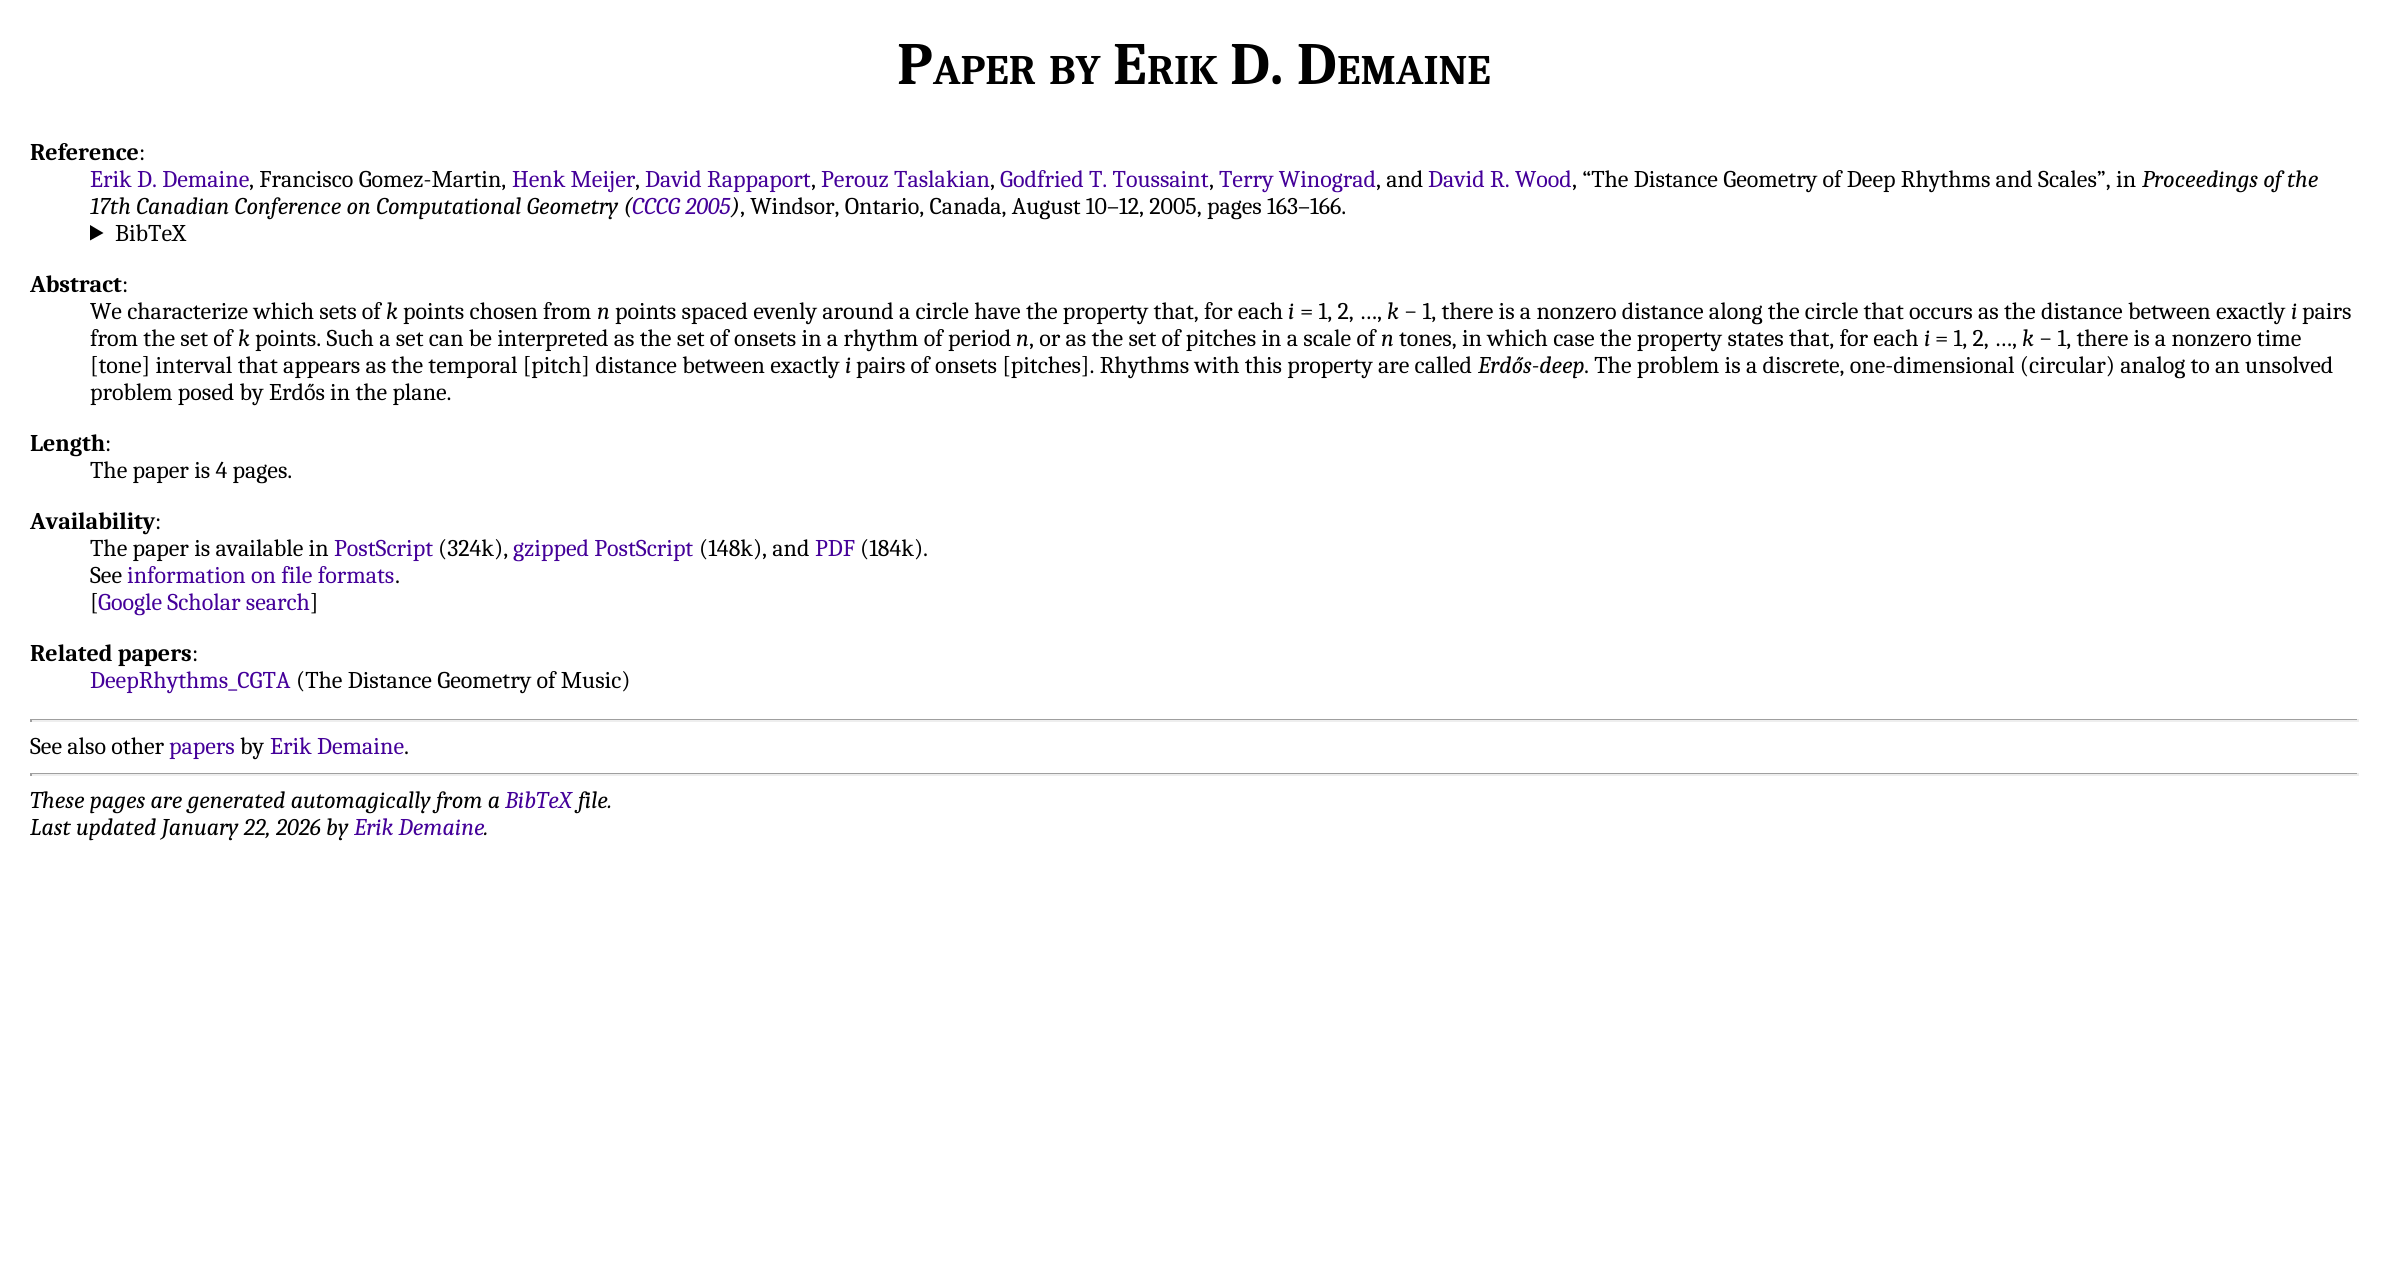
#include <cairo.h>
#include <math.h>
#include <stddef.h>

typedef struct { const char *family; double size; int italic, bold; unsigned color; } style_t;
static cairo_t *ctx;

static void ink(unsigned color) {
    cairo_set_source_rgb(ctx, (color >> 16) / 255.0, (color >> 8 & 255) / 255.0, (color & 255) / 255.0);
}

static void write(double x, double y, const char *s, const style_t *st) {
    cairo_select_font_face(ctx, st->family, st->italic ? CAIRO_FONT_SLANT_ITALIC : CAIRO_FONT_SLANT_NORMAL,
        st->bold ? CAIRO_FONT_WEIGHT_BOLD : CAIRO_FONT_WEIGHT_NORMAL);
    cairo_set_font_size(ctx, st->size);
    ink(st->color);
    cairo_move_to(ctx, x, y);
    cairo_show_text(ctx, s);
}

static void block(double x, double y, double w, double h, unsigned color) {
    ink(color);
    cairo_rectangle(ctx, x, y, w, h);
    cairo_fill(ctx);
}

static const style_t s1 = {"Caladea", 60, 0, 1, 0x000000};
static const style_t s2 = {"Caladea", 42, 0, 1, 0x000000};
static const style_t s3 = {"Caladea", 24, 0, 1, 0x000000};
static const style_t s4 = {"Caladea", 24, 0, 0, 0x000000};
static const style_t s5 = {"Caladea", 24, 0, 0, 0x440099};
static const style_t s6 = {"Caladea", 24, 1, 0, 0x000000};
static const style_t s7 = {"Caladea", 24, 1, 0, 0x440099};

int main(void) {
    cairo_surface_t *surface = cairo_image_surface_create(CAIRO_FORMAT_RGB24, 2388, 1279);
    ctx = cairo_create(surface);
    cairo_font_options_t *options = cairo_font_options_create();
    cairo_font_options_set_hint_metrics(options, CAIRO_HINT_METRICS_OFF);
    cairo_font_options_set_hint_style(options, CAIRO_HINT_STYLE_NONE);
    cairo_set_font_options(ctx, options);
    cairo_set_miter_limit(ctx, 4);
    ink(0xffffff);
    cairo_paint(ctx);
    write(897, 84, "P", &s1);
    write(933, 84, "APER", &s2);
    write(1049, 84, "BY", &s2);
    write(1113, 84, "E", &s1);
    write(1147, 84, "RIK", &s2);
    write(1230, 84, "D. D", &s1);
    write(1337, 84, "EMAINE", &s2);
    write(30, 160, "Reference", &s3);
    write(139, 160, ":", &s4);
    write(90, 187, "Erik D. Demaine", &s5);
    write(249, 187, ", Francisco Gomez-Martin,", &s4);
    write(512, 187, "Henk Meijer", &s5);
    write(635, 187, ",", &s4);
    write(645, 187, "David Rappaport", &s5);
    write(811, 187, ",", &s4);
    write(821, 187, "Perouz Taslakian", &s5);
    write(990, 187, ",", &s4);
    write(1000, 187, "Godfried T. Toussaint", &s5);
    write(1209, 187, ",", &s4);
    write(1219, 187, "Terry Winograd", &s5);
    write(1376, 187, ", and", &s4);
    write(1428, 187, "David R. Wood", &s5);
    write(1572, 187, ", “The Distance Geometry of Deep Rhythms and Scales”, in", &s4);
    write(2142, 187, "Proceedings of the", &s6);
    write(90, 214, "17th Canadian Conference on Computational Geometry (", &s6);
    write(632, 214, "CCCG 2005", &s7);
    write(731, 214, ")", &s6);
    write(740, 214, ", Windsor, Ontario, Canada, August 10–12, 2005, pages 163–166.", &s4);
    cairo_new_path(ctx);
    cairo_move_to(ctx, 90, 225);
    cairo_line_to(ctx, 103.5, 233);
    cairo_line_to(ctx, 90, 240.5);
    cairo_close_path(ctx);
    cairo_fill(ctx);
    write(115, 241, "BibTeX", &s4);
    write(30, 292, "Abstract", &s3);
    write(122, 292, ":", &s4);
    write(90, 319, "We characterize which sets of", &s4);
    write(386, 319, "k", &s6);
    write(403, 319, "points chosen from", &s4);
    write(597, 319, "n", &s6);
    write(615, 319, "points spaced evenly around a circle have the property that, for each", &s4);
    write(1288, 319, "i", &s6);
    write(1300, 319, "= 1, 2, …,", &s4);
    write(1387, 319, "k", &s6);
    write(1404, 319, "− 1, there is a nonzero distance along the circle that occurs as the distance between exactly", &s4);
    write(2291, 319, "i", &s6);
    write(2302, 319, "pairs", &s4);
    write(90, 346, "from the set of", &s4);
    write(238, 346, "k", &s6);
    write(255, 346, "points. Such a set can be interpreted as the set of onsets in a rhythm of period", &s4);
    write(1016, 346, "n", &s6);
    write(1029, 346, ", or as the set of pitches in a scale of", &s4);
    write(1381, 346, "n", &s6);
    write(1399, 346, "tones, in which case the property states that, for each", &s4);
    write(1924, 346, "i", &s6);
    write(1935, 346, "= 1, 2, …,", &s4);
    write(2022, 346, "k", &s6);
    write(2039, 346, "− 1, there is a nonzero time", &s4);
    write(90, 373, "[tone] interval that appears as the temporal [pitch] distance between exactly", &s4);
    write(845, 373, "i", &s6);
    write(856, 373, "pairs of onsets [pitches]. Rhythms with this property are called", &s4);
    write(1478, 373, "Erdős-deep", &s6);
    write(1584, 373, ". The problem is a discrete, one-dimensional (circular) analog to an unsolved", &s4);
    write(90, 400, "problem posed by Erdős in the plane.", &s4);
    write(30, 451, "Length", &s3);
    write(105, 451, ":", &s4);
    write(90, 478, "The paper is 4 pages.", &s4);
    write(30, 529, "Availability", &s3);
    write(155, 529, ":", &s4);
    write(90, 556, "The paper is available in", &s4);
    write(334, 556, "PostScript", &s5);
    write(438, 556, "(324k),", &s4);
    write(513, 556, "gzipped PostScript", &s5);
    write(699, 556, "(148k), and", &s4);
    write(815, 556, "PDF", &s5);
    write(860, 556, "(184k).", &s4);
    write(90, 583, "See", &s4);
    write(127, 583, "information on file formats", &s5);
    write(395, 583, ".", &s4);
    write(90, 610, "[", &s4);
    write(98, 610, "Google Scholar search", &s5);
    write(310, 610, "]", &s4);
    write(30, 661, "Related papers", &s3);
    write(192, 661, ":", &s4);
    write(90, 688, "DeepRhythms_CGTA", &s5);
    write(296, 688, "(The Distance Geometry of Music)", &s4);
    block(30, 719, 2328, 1, 0x9f9f9f);
    block(2357, 719, 2, 3, 0xeeeeee);
    block(30, 720, 2328, 2, 0xeeeeee);
    block(30, 719, 2, 3, 0x9f9f9f);
    write(30, 754, "See also other", &s4);
    write(169, 754, "papers", &s5);
    write(240, 754, "by", &s4);
    write(270, 754, "Erik Demaine", &s5);
    write(404, 754, ".", &s4);
    block(30, 773, 2328, 1, 0x9f9f9f);
    block(2357, 773, 2, 3, 0xeeeeee);
    block(30, 774, 2328, 2, 0xeeeeee);
    block(30, 773, 2, 3, 0x9f9f9f);
    write(30, 808, "These pages are generated automagically from a", &s6);
    write(505, 808, "BibTeX", &s7);
    write(578, 808, "file.", &s6);
    write(30, 835, "Last updated January 22, 2026 by", &s6);
    write(354, 835, "Erik Demaine", &s7);
    write(484, 835, ".", &s6);
    cairo_surface_write_to_png(surface, "screenshot.png");
    cairo_font_options_destroy(options);
    cairo_destroy(ctx);
    cairo_surface_destroy(surface);
    return 0;
}
